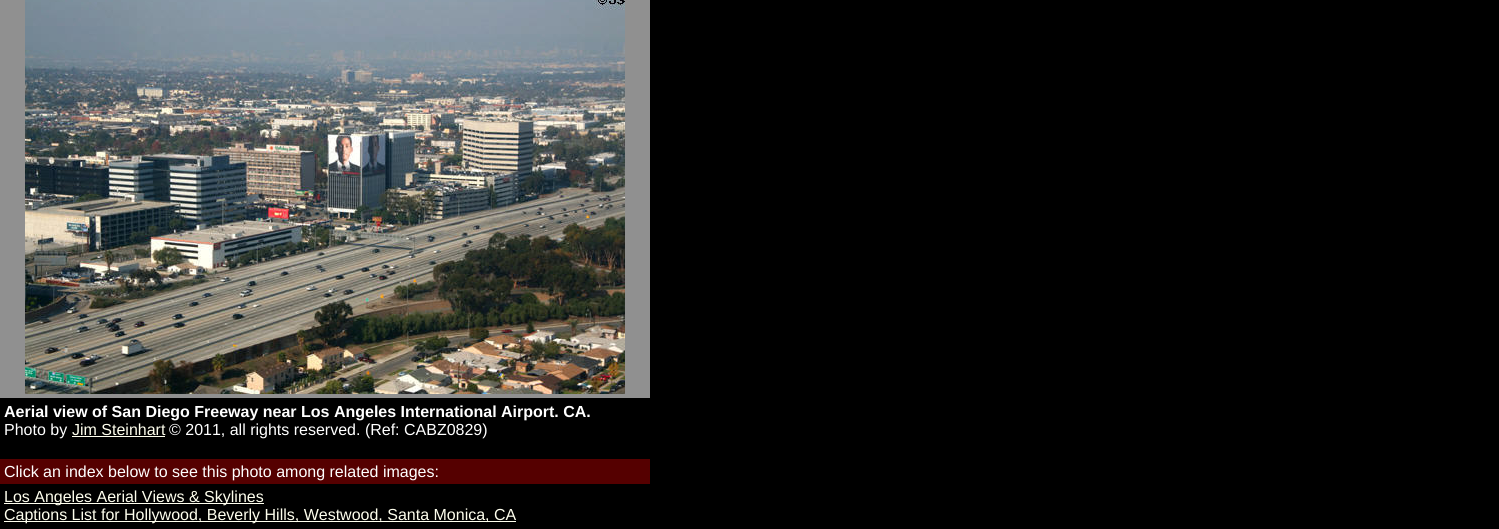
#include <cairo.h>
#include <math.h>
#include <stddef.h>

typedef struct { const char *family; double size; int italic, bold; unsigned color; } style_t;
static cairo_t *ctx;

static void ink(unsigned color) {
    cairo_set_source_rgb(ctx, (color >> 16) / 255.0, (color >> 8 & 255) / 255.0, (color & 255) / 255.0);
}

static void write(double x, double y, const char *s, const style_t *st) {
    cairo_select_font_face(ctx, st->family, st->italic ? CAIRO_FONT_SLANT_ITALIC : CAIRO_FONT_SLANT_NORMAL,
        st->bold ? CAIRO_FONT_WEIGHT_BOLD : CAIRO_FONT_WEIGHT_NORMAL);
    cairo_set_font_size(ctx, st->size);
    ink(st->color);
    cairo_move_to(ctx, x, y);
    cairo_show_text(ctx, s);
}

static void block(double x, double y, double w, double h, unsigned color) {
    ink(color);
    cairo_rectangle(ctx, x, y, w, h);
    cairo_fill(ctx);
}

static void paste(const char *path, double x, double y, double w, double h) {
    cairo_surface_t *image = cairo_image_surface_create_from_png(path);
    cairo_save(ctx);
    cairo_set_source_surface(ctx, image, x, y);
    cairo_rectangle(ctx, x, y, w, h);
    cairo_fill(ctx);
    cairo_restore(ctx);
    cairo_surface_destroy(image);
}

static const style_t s1 = {"Liberation Sans", 16, 0, 1, 0xffffff};
static const style_t s2 = {"Liberation Sans", 16, 0, 0, 0xffffff};
static const style_t s3 = {"Liberation Sans", 16, 0, 0, 0xffffee};

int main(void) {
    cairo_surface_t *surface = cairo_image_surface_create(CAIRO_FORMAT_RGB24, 1499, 529);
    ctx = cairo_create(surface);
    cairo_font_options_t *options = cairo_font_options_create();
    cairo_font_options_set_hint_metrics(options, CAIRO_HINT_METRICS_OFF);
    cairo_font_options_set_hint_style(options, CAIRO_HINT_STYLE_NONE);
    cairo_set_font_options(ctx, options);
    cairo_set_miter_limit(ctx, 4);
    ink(0x000000);
    cairo_paint(ctx);
    block(0, 0, 650, 398, 0x909090);
    paste("pic1.png", 25, 0, 600, 394);
    write(4, 417, "Aerial view of San Diego Freeway near Los Angeles International Airport. CA.", &s1);
    write(4, 435, "Photo by", &s2);
    write(72, 435, "Jim Steinhart", &s3);
    block(72, 436, 93, 1, 0xffffee);
    write(169, 435, "© 2011, all rights reserved. (Ref: CABZ0829)", &s2);
    block(0, 459, 650, 25, 0x550000);
    write(4, 477, "Click an index below to see this photo among related images:", &s2);
    block(4, 503, 260, 1, 0xffffee);
    write(4, 502, "Los Angeles Aerial Views & Skylines", &s3);
    block(4, 521, 512, 1, 0xffffee);
    write(4, 520, "Captions List for Hollywood, Beverly Hills, Westwood, Santa Monica, CA", &s3);
    cairo_surface_write_to_png(surface, "screenshot.png");
    cairo_font_options_destroy(options);
    cairo_destroy(ctx);
    cairo_surface_destroy(surface);
    return 0;
}
